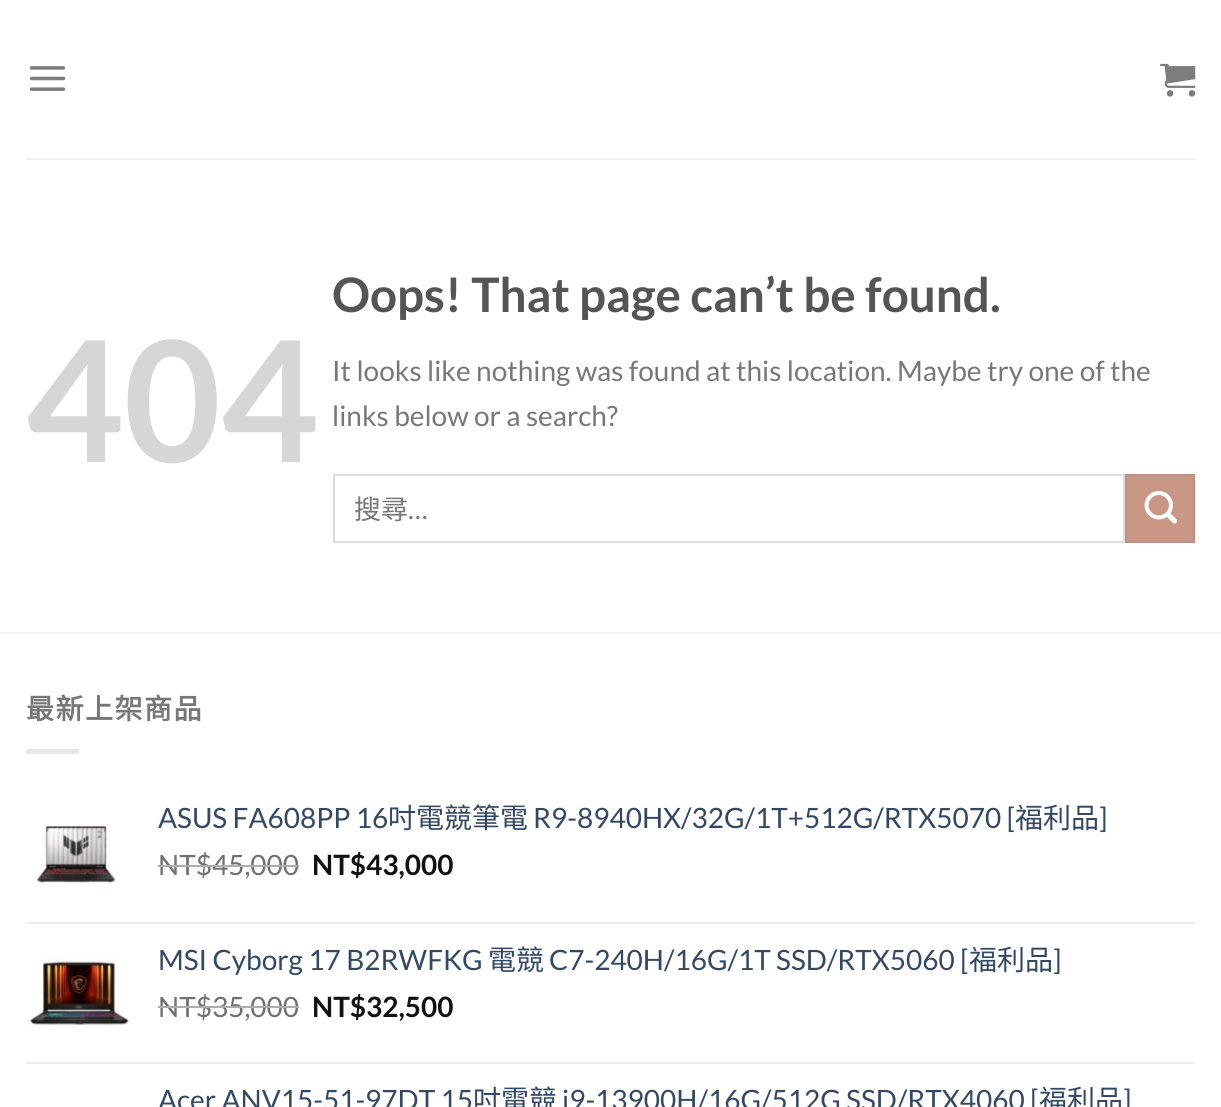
#include <cairo.h>
#include <math.h>
#include <stddef.h>

typedef struct { const char *family; double size; int italic, bold; unsigned color; } style_t;
static cairo_t *ctx;

static void ink(unsigned color) {
    cairo_set_source_rgb(ctx, (color >> 16) / 255.0, (color >> 8 & 255) / 255.0, (color & 255) / 255.0);
}

static void write(double x, double y, const char *s, const style_t *st) {
    cairo_select_font_face(ctx, st->family, st->italic ? CAIRO_FONT_SLANT_ITALIC : CAIRO_FONT_SLANT_NORMAL,
        st->bold ? CAIRO_FONT_WEIGHT_BOLD : CAIRO_FONT_WEIGHT_NORMAL);
    cairo_set_font_size(ctx, st->size);
    ink(st->color);
    cairo_move_to(ctx, x, y);
    cairo_show_text(ctx, s);
}

static void write_spaced(double x, double y, const char *s, double letter, double word) {
    cairo_move_to(ctx, x, y);
    while (*s) {
        char ch[5] = {0};
        int n = 0;
        do ch[n++] = *s++; while ((*s & 0xC0) == 0x80);
        cairo_show_text(ctx, ch);
        cairo_rel_move_to(ctx, letter + word * (*ch == ' '), 0);
    }
}

static void block(double x, double y, double w, double h, unsigned color) {
    ink(color);
    cairo_rectangle(ctx, x, y, w, h);
    cairo_fill(ctx);
}

static void paste(const char *path, double x, double y, double w, double h) {
    cairo_surface_t *image = cairo_image_surface_create_from_png(path);
    cairo_save(ctx);
    cairo_set_source_surface(ctx, image, x, y);
    cairo_rectangle(ctx, x, y, w, h);
    cairo_fill(ctx);
    cairo_restore(ctx);
    cairo_surface_destroy(image);
}

static const style_t s1 = {"Lato", 168, 0, 1, 0xd6d6d6};
static const style_t s2 = {"Lato", 47.6, 0, 1, 0x555555};
static const style_t s3 = {"Lato", 28, 0, 0, 0x777777};
static const style_t s4 = {"Noto Sans CJK TC", 27, 0, 0, 0x777777};
static const style_t s5 = {"Lato", 27, 0, 0, 0x777777};
static const style_t s6 = {"Lato", 28, 0, 0, 0x334862};
static const style_t s7 = {"Noto Sans CJK TC", 28, 0, 0, 0x334862};
static const style_t s8 = {"Lato", 28, 0, 0, 0x707070};
static const style_t s9 = {"Lato", 28, 0, 1, 0x111111};

int main(void) {
    cairo_surface_t *surface = cairo_image_surface_create(CAIRO_FORMAT_RGB24, 1221, 1107);
    ctx = cairo_create(surface);
    cairo_font_options_t *options = cairo_font_options_create();
    cairo_font_options_set_hint_metrics(options, CAIRO_HINT_METRICS_OFF);
    cairo_font_options_set_hint_style(options, CAIRO_HINT_STYLE_NONE);
    cairo_set_font_options(ctx, options);
    cairo_set_miter_limit(ctx, 4);
    ink(0xffffff);
    cairo_paint(ctx);
    paste("pic1.png", 29, 66, 37, 25);
    paste("pic2.png", 1160, 63, 36, 34);
    block(26, 158, 1169, 2, 0xf1f1f1);
    write(26, 462, "404", &s1);
    write(332, 312, "Oops! That page can’t be found.", &s2);
    write(332, 381, "It looks like nothing was found at this location. Maybe try one of the", &s3);
    write(332, 426, "links below or a search?", &s3);
    cairo_rectangle(ctx, 334, 475, 790, 67);
    ink(0xdddddd);
    cairo_stroke(ctx);
    write(354, 519, "搜尋", &s4);
    write(408, 519, "…", &s5);
    ink(0xca9685);
    cairo_rectangle(ctx, 1126, 475, 68, 67);
    cairo_fill_preserve(ctx);
    ink(0xc08f7e);
    cairo_stroke(ctx);
    paste("pic3.png", 1144, 491, 33, 33);
    block(0, 632, 1221, 2, 0xf2f2f2);
    cairo_select_font_face(ctx, "Noto Sans CJK TC", CAIRO_FONT_SLANT_NORMAL, CAIRO_FONT_WEIGHT_BOLD);
    cairo_set_font_size(ctx, 28);
    ink(0x777777);
    write_spaced(26, 719, "最新上架商品", 1.5, 0);
    block(26, 749, 53, 5, 0xe6e6e6);
    write(158, 828, "ASUS FA608PP 16", &s6);
    write(388, 828, "吋電競筆電", &s7);
    write(533, 828, "R9-8940HX/32G/1T+512G/RTX5070 [", &s6);
    write(1015, 828, "福利品", &s7);
    write(1099, 828, "]", &s6);
    paste("pic4.png", 36, 825, 83, 59);
    write(158, 875, "NT$45,000", &s8);
    block(158, 865, 141, 2, 0xadadad);
    write(312, 875, "NT$43,000", &s9);
    block(26, 922, 1169, 2, 0xececec);
    paste("pic5.png", 27, 958, 102, 68);
    write(158, 970, "MSI Cyborg 17 B2RWFKG", &s6);
    write(488, 970, "電競", &s7);
    write(549, 970, "C7-240H/16G/1T SSD/RTX5060 [", &s6);
    write(969, 970, "福利品", &s7);
    write(1053, 970, "]", &s6);
    write(158, 1017, "NT$35,000", &s8);
    block(158, 1006, 141, 2, 0xadadad);
    write(312, 1017, "NT$32,500", &s9);
    block(26, 1062, 1169, 2, 0xececec);
    write(158, 1110, "Acer ANV15-51-97DT 15", &s6);
    write(473, 1110, "吋電競", &s7);
    write(562, 1110, "i9-13900H/16G/512G SSD/RTX4060 [", &s6);
    write(1039, 1110, "福利品", &s7);
    write(1123, 1110, "]", &s6);
    cairo_surface_write_to_png(surface, "screenshot.png");
    cairo_font_options_destroy(options);
    cairo_destroy(ctx);
    cairo_surface_destroy(surface);
    return 0;
}
